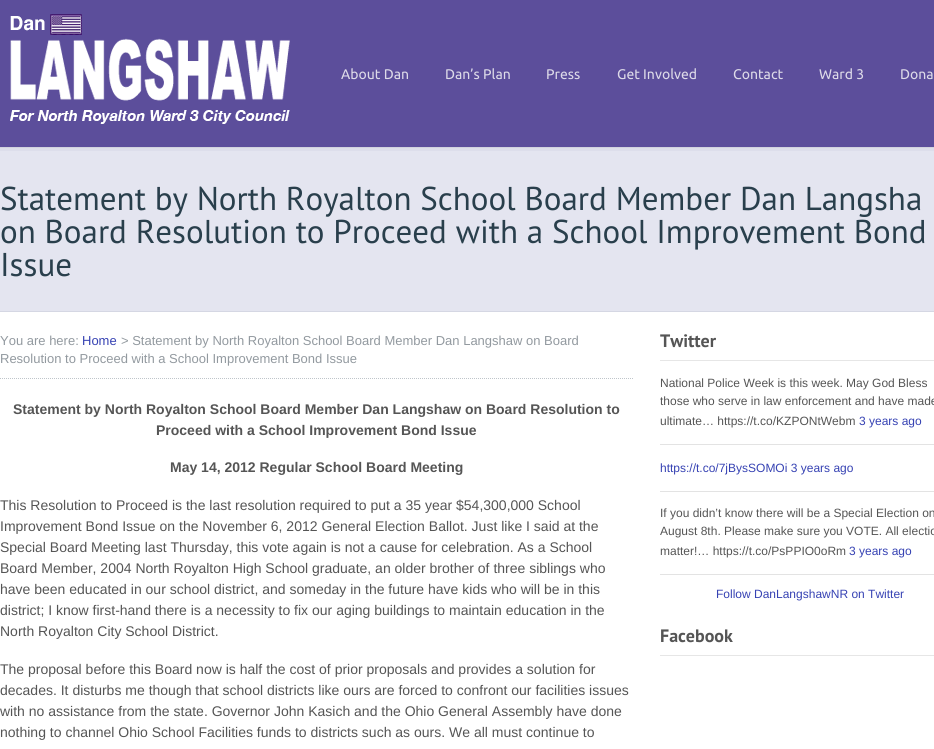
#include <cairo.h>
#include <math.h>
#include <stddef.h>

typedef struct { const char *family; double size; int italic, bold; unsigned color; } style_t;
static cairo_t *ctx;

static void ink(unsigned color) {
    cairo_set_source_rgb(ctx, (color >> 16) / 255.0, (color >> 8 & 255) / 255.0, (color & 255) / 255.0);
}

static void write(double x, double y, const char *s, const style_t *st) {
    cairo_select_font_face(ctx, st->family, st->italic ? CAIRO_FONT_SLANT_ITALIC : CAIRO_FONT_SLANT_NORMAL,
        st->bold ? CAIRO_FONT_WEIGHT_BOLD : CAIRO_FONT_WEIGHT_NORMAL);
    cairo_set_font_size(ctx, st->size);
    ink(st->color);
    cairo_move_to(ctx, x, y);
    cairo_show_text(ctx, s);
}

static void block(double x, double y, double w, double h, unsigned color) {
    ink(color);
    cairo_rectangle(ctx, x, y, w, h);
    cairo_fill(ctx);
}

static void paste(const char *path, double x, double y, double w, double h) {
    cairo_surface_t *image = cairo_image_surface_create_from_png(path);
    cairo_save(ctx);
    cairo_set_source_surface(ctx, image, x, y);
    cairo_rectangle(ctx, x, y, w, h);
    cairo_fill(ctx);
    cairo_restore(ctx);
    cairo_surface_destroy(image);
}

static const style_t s1 = {"Ubuntu", 14, 0, 0, 0xdddae8};
static const style_t s2 = {"PT Sans", 33, 0, 0, 0x293f4c};
static const style_t s3 = {"Liberation Sans", 13, 0, 0, 0x92999f};
static const style_t s4 = {"Liberation Sans", 13, 0, 0, 0x3642b3};
static const style_t s5 = {"Liberation Sans", 14, 0, 1, 0x555555};
static const style_t s6 = {"Liberation Sans", 14, 0, 0, 0x555555};
static const style_t s7 = {"PT Sans", 18, 0, 1, 0x555555};
static const style_t s8 = {"Liberation Sans", 12, 0, 0, 0x555555};
static const style_t s9 = {"Liberation Sans", 12, 0, 0, 0x3642b3};

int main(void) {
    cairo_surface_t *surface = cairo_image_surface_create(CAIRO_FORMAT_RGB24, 934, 749);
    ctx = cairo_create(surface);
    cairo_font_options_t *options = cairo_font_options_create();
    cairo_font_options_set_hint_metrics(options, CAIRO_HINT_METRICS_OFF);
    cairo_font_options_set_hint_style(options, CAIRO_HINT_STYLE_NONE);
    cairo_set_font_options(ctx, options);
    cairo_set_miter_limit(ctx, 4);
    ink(0xffffff);
    cairo_paint(ctx);
    block(0, 0, 934, 147, 0x5c4e9b);
    block(0, 147, 934, 1, 0xd1d2de);
    paste("pic1.png", 10, 14, 280, 110);
    write(341, 79, "About Dan", &s1);
    write(445, 79, "Dan’s Plan", &s1);
    write(546, 79, "Press", &s1);
    write(617, 79, "Get Involved", &s1);
    write(733, 79, "Contact", &s1);
    write(819, 79, "Ward 3", &s1);
    write(900, 79, "Dona", &s1);
    block(0, 151, 934, 160, 0xe4e5f0);
    block(0, 148, 934, 3, 0xdddeeb);
    block(0, 311, 934, 1, 0xd5d7e3);
    write(0, 210, "Statement by North Royalton School Board Member Dan Langsha", &s2);
    write(0, 243, "on Board Resolution to Proceed with a School Improvement Bond", &s2);
    write(0, 276, "Issue", &s2);
    cairo_new_path(ctx);
    cairo_move_to(ctx, 0, 378.5);
    cairo_line_to(ctx, 633, 378.5);
    ink(0xbfc5ca);
    cairo_set_line_width(ctx, 1);
    cairo_set_dash(ctx, (double[]){1, 1}, 2, 0);
    cairo_stroke(ctx);
    write(0, 345, "You are here:", &s3);
    write(82, 345, "Home", &s4);
    write(121, 345, "> Statement by North Royalton School Board Member Dan Langshaw on Board", &s3);
    write(0, 363, "Resolution to Proceed with a School Improvement Bond Issue", &s3);
    write(13, 414, "Statement by North Royalton School Board Member Dan Langshaw on Board Resolution to", &s5);
    write(156, 435, "Proceed with a School Improvement Bond Issue", &s5);
    write(170, 472, "May 14, 2012 Regular School Board Meeting", &s5);
    write(0, 510, "This Resolution to Proceed is the last resolution required to put a 35 year $54,300,000 School", &s6);
    write(0, 531, "Improvement Bond Issue on the November 6, 2012 General Election Ballot. Just like I said at the", &s6);
    write(0, 552, "Special Board Meeting last Thursday, this vote again is not a cause for celebration. As a School", &s6);
    write(0, 573, "Board Member, 2004 North Royalton High School graduate, an older brother of three siblings who", &s6);
    write(0, 594, "have been educated in our school district, and someday in the future have kids who will be in this", &s6);
    write(0, 615, "district; I know first-hand there is a necessity to fix our aging buildings to maintain education in the", &s6);
    write(0, 636, "North Royalton City School District.", &s6);
    write(0, 674, "The proposal before this Board now is half the cost of prior proposals and provides a solution for", &s6);
    write(0, 695, "decades. It disturbs me though that school districts like ours are forced to confront our facilities issues", &s6);
    write(0, 716, "with no assistance from the state. Governor John Kasich and the Ohio General Assembly have done", &s6);
    write(0, 737, "nothing to channel Ohio School Facilities funds to districts such as ours. We all must continue to", &s6);
    block(660, 360, 274, 1, 0xe6e6e6);
    write(660, 347, "Twitter", &s7);
    block(660, 444, 274, 1, 0xe3e3e3);
    write(660, 387, "National Police Week is this week. May God Bless", &s8);
    write(660, 405, "those who serve in law enforcement and have made", &s8);
    write(660, 425, "ultimate… https://t.co/KZPONtWebm", &s8);
    write(859, 425, "3 years ago", &s9);
    block(660, 491, 274, 1, 0xe3e3e3);
    write(660, 472, "https://t.co/7jBysSOMOi 3 years ago", &s9);
    block(660, 574, 274, 1, 0xe3e3e3);
    write(660, 517, "If you didn’t know there will be a Special Election on", &s8);
    write(660, 535, "August 8th. Please make sure you VOTE. All electio", &s8);
    write(660, 555, "matter!… https://t.co/PsPPIO0oRm", &s8);
    write(849, 555, "3 years ago", &s9);
    write(716, 598, "Follow DanLangshawNR on Twitter", &s9);
    block(660, 655, 274, 1, 0xe6e6e6);
    write(660, 642, "Facebook", &s7);
    cairo_surface_write_to_png(surface, "screenshot.png");
    cairo_font_options_destroy(options);
    cairo_destroy(ctx);
    cairo_surface_destroy(surface);
    return 0;
}
